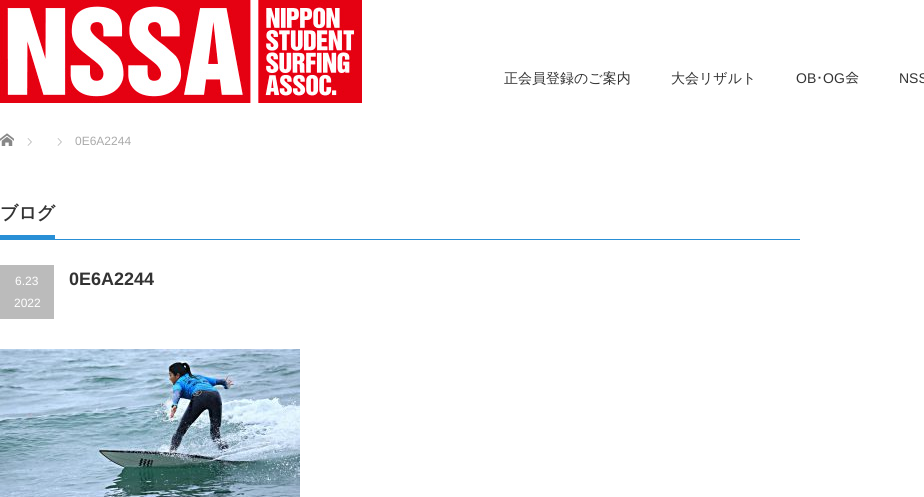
#include <cairo.h>
#include <math.h>
#include <stddef.h>

typedef struct { const char *family; double size; int italic, bold; unsigned color; } style_t;
static cairo_t *ctx;

static void ink(unsigned color) {
    cairo_set_source_rgb(ctx, (color >> 16) / 255.0, (color >> 8 & 255) / 255.0, (color & 255) / 255.0);
}

static void write(double x, double y, const char *s, const style_t *st) {
    cairo_select_font_face(ctx, st->family, st->italic ? CAIRO_FONT_SLANT_ITALIC : CAIRO_FONT_SLANT_NORMAL,
        st->bold ? CAIRO_FONT_WEIGHT_BOLD : CAIRO_FONT_WEIGHT_NORMAL);
    cairo_set_font_size(ctx, st->size);
    ink(st->color);
    cairo_move_to(ctx, x, y);
    cairo_show_text(ctx, s);
}

static void block(double x, double y, double w, double h, unsigned color) {
    ink(color);
    cairo_rectangle(ctx, x, y, w, h);
    cairo_fill(ctx);
}

static void paste(const char *path, double x, double y, double w, double h) {
    cairo_surface_t *image = cairo_image_surface_create_from_png(path);
    cairo_save(ctx);
    cairo_set_source_surface(ctx, image, x, y);
    cairo_rectangle(ctx, x, y, w, h);
    cairo_fill(ctx);
    cairo_restore(ctx);
    cairo_surface_destroy(image);
}

static const style_t s1 = {"WenQuanYi Zen Hei Medium", 14, 0, 0, 0x333333};
static const style_t s2 = {"Liberation Sans", 14, 0, 0, 0x333333};
static const style_t s3 = {"IPAGothic", 14, 0, 0, 0x333333};
static const style_t s4 = {"Liberation Sans", 12, 0, 0, 0xaaaaaa};
static const style_t s5 = {"WenQuanYi Zen Hei", 18, 0, 1, 0x333333};
static const style_t s6 = {"Liberation Sans", 12, 0, 0, 0xffffff};
static const style_t s7 = {"Liberation Sans", 18, 0, 1, 0x333333};

int main(void) {
    cairo_surface_t *surface = cairo_image_surface_create(CAIRO_FORMAT_RGB24, 924, 497);
    ctx = cairo_create(surface);
    cairo_font_options_t *options = cairo_font_options_create();
    cairo_font_options_set_hint_metrics(options, CAIRO_HINT_METRICS_OFF);
    cairo_font_options_set_hint_style(options, CAIRO_HINT_STYLE_NONE);
    cairo_set_font_options(ctx, options);
    cairo_set_miter_limit(ctx, 4);
    ink(0xffffff);
    cairo_paint(ctx);
    paste("pic1.png", 0, 0, 362, 103);
    write(504, 83, "正会員登録のご案内", &s1);
    write(671, 83, "大会リザルト", &s1);
    write(796, 83, "OB", &s2);
    write(816, 83, "･", &s3);
    write(823, 83, "OG", &s2);
    write(845, 83, "会", &s3);
    write(899, 83, "NSS", &s2);
    paste("pic2.png", 0, 133, 14, 13);
    paste("pic3.png", 27, 138, 5, 8);
    paste("pic3.png", 57, 138, 5, 8);
    write(75, 145, "0E6A2244", &s4);
    block(0, 239, 800, 1, 0x298fd6);
    block(0, 235, 55, 4, 0x298fd6);
    write(0, 219, "ブログ", &s5);
    block(0, 265, 54, 54, 0xbbbbbb);
    write(15, 285, "6.23", &s6);
    write(14, 307, "2022", &s6);
    write(69, 285, "0E6A2244", &s7);
    paste("pic4.png", 0, 349, 300, 148);
    cairo_surface_write_to_png(surface, "screenshot.png");
    cairo_font_options_destroy(options);
    cairo_destroy(ctx);
    cairo_surface_destroy(surface);
    return 0;
}
